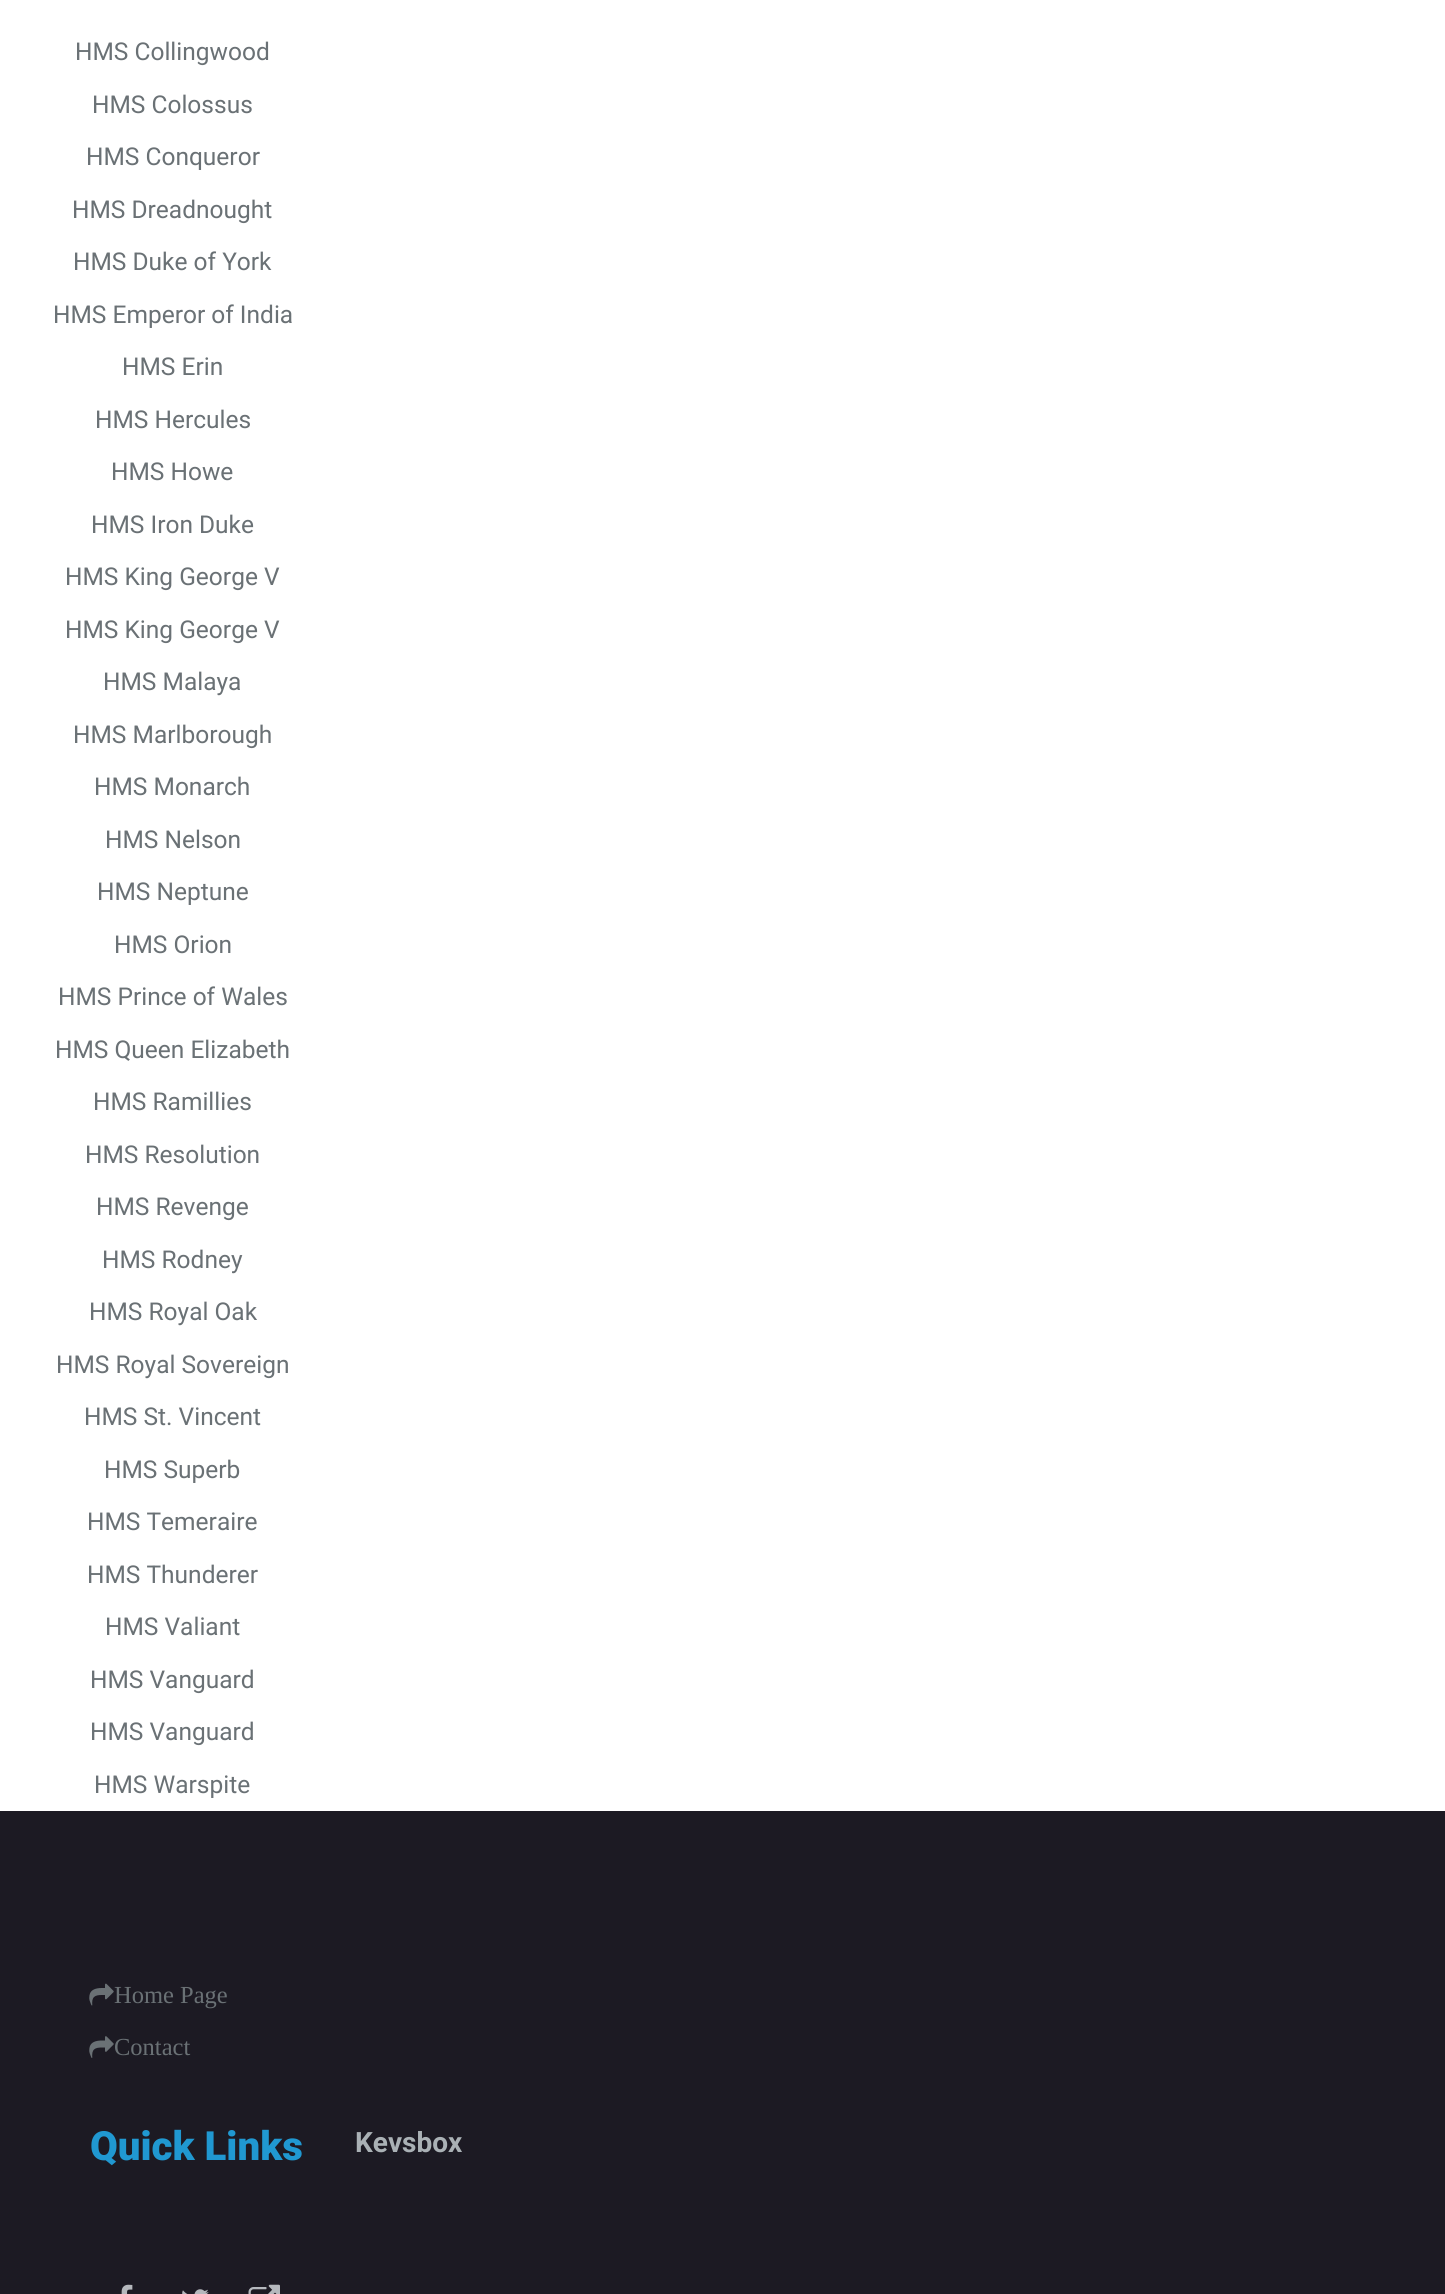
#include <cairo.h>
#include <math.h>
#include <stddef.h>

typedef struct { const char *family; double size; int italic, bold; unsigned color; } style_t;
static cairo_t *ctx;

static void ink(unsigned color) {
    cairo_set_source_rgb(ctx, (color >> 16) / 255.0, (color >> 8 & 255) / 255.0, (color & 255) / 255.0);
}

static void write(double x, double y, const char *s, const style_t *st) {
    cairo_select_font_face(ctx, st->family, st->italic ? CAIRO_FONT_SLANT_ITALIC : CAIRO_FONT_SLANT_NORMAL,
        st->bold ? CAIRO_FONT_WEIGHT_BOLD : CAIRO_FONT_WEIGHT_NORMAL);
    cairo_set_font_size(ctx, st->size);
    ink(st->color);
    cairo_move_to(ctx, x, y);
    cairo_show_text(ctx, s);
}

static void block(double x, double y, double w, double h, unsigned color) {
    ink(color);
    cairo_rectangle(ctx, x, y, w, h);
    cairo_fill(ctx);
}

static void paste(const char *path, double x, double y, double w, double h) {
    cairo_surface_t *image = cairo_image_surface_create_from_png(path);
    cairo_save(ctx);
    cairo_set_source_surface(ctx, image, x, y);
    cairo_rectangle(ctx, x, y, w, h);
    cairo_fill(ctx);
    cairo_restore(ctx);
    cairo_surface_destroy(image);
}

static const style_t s1 = {"Roboto", 24.5, 0, 0, 0x6a7175};
static const style_t s2 = {"Liberation Serif", 24.5, 0, 0, 0x6a7175};
static const style_t s3 = {"Roboto Black", 40.25, 0, 0, 0x2098d1};
static const style_t s4 = {"Roboto", 28, 0, 1, 0xaab1b5};

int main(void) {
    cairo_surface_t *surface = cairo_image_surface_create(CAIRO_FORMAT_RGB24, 1445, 2294);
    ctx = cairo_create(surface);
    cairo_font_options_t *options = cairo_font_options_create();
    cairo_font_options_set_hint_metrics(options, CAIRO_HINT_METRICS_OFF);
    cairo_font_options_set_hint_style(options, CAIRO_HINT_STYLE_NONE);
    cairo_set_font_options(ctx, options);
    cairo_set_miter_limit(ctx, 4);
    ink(0xffffff);
    cairo_paint(ctx);
    write(75, 60, "HMS Collingwood", &s1);
    write(92, 113, "HMS Colossus", &s1);
    write(86, 165, "HMS Conqueror", &s1);
    write(72, 218, "HMS Dreadnought", &s1);
    write(73, 270, "HMS Duke of York", &s1);
    write(53, 323, "HMS Emperor of India", &s1);
    write(122, 375, "HMS Erin", &s1);
    write(95, 428, "HMS Hercules", &s1);
    write(111, 480, "HMS Howe", &s1);
    write(91, 533, "HMS Iron Duke", &s1);
    write(65, 585, "HMS King George V", &s1);
    write(65, 638, "HMS King George V", &s1);
    write(103, 690, "HMS Malaya", &s1);
    write(73, 743, "HMS Marlborough", &s1);
    write(94, 795, "HMS Monarch", &s1);
    write(105, 848, "HMS Nelson", &s1);
    write(97, 900, "HMS Neptune", &s1);
    write(114, 953, "HMS Orion", &s1);
    write(58, 1005, "HMS Prince of Wales", &s1);
    write(55, 1058, "HMS Queen Elizabeth", &s1);
    write(93, 1110, "HMS Ramillies", &s1);
    write(85, 1163, "HMS Resolution", &s1);
    write(96, 1215, "HMS Revenge", &s1);
    write(102, 1268, "HMS Rodney", &s1);
    write(89, 1320, "HMS Royal Oak", &s1);
    write(56, 1373, "HMS Royal Sovereign", &s1);
    write(84, 1425, "HMS St. Vincent", &s1);
    write(104, 1478, "HMS Superb", &s1);
    write(87, 1530, "HMS Temeraire", &s1);
    write(87, 1583, "HMS Thunderer", &s1);
    write(105, 1635, "HMS Valiant", &s1);
    write(90, 1688, "HMS Vanguard", &s1);
    write(90, 1740, "HMS Vanguard", &s1);
    write(94, 1793, "HMS Warspite", &s1);
    block(0, 1811, 1445, 483, 0x1c1a23);
    paste("pic1.png", 89, 1983, 25, 23);
    write(114, 2003, "Home Page", &s2);
    paste("pic2.png", 89, 2036, 25, 22);
    write(114, 2055, "Contact", &s2);
    write(90, 2160, "Quick Links", &s3);
    write(355, 2152, "Kevsbox", &s4);
    paste("pic3.png", 121, 2284, 12, 10);
    paste("pic4.png", 182, 2289, 27, 5);
    paste("pic5.png", 248, 2284, 32, 10);
    cairo_surface_write_to_png(surface, "screenshot.png");
    cairo_font_options_destroy(options);
    cairo_destroy(ctx);
    cairo_surface_destroy(surface);
    return 0;
}
